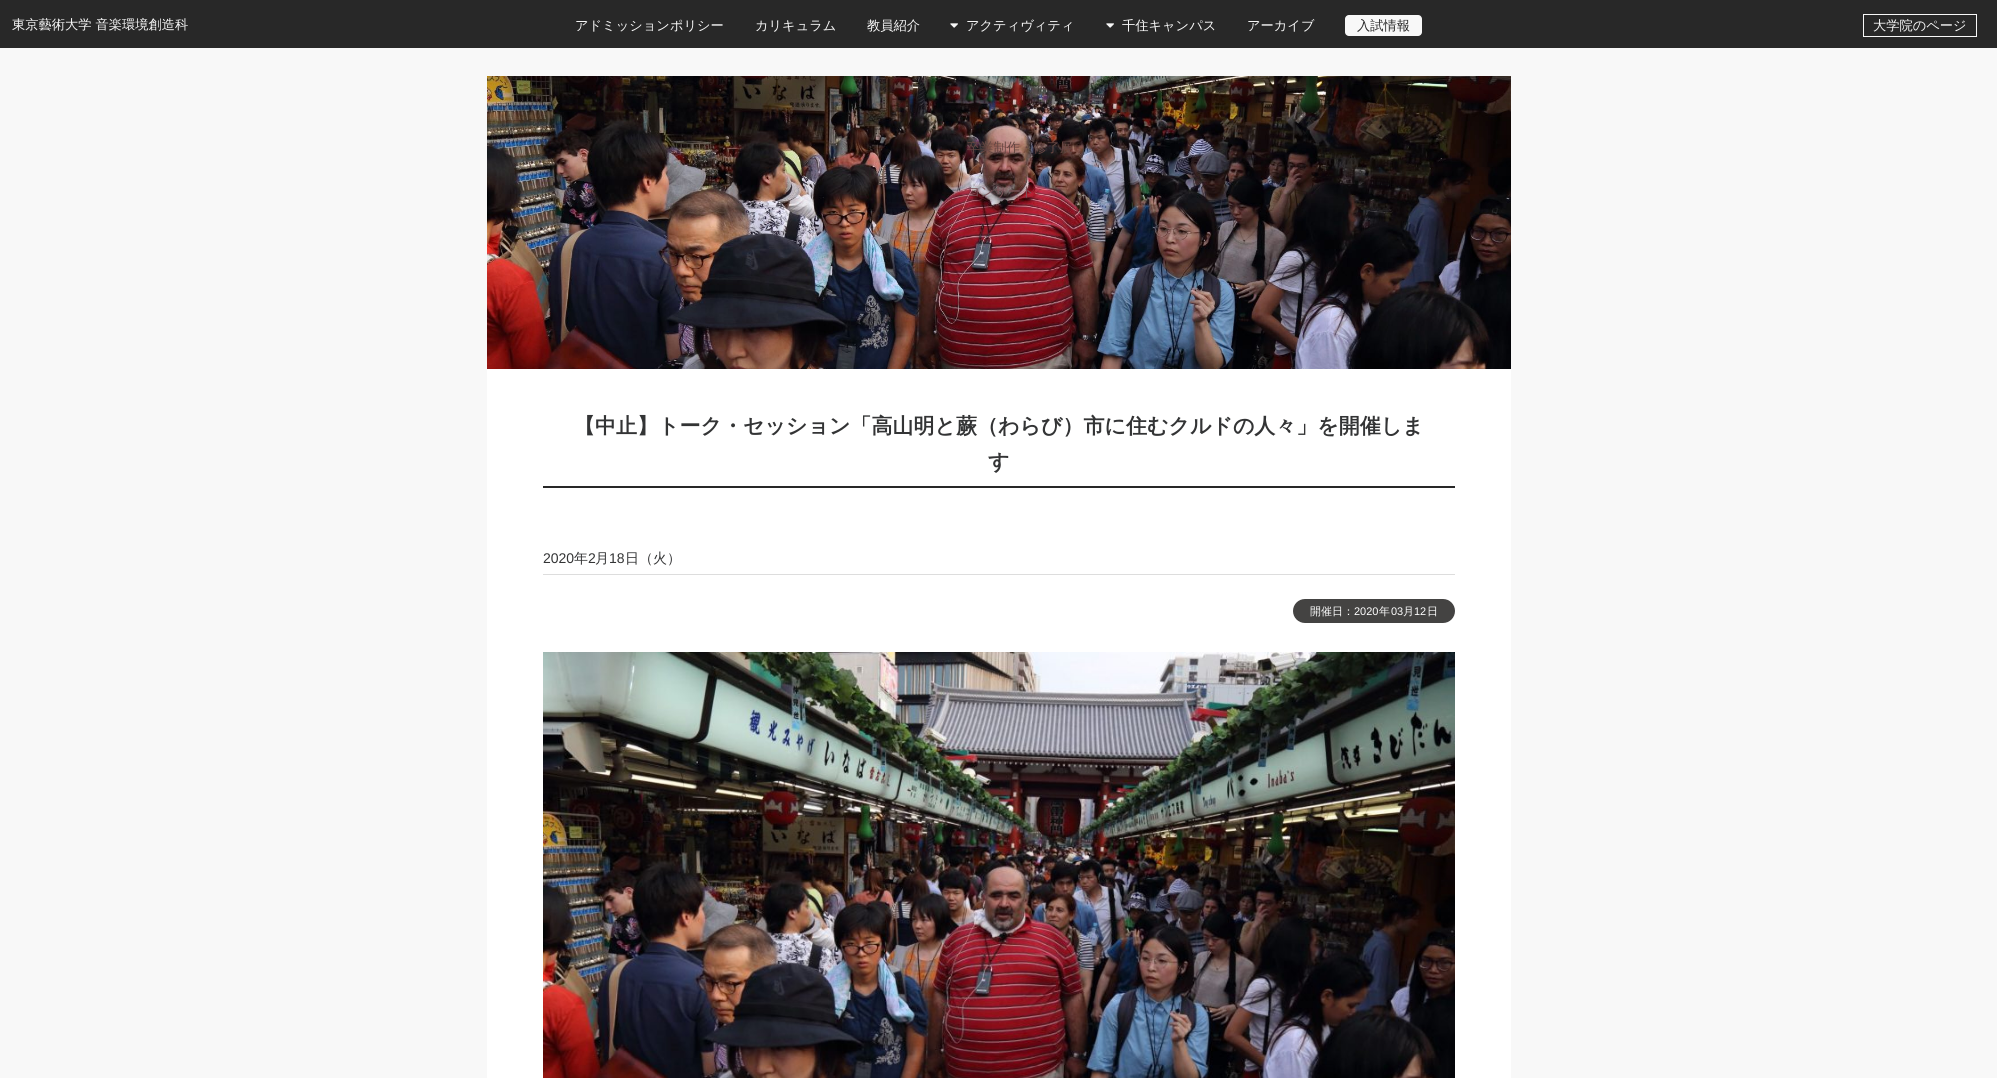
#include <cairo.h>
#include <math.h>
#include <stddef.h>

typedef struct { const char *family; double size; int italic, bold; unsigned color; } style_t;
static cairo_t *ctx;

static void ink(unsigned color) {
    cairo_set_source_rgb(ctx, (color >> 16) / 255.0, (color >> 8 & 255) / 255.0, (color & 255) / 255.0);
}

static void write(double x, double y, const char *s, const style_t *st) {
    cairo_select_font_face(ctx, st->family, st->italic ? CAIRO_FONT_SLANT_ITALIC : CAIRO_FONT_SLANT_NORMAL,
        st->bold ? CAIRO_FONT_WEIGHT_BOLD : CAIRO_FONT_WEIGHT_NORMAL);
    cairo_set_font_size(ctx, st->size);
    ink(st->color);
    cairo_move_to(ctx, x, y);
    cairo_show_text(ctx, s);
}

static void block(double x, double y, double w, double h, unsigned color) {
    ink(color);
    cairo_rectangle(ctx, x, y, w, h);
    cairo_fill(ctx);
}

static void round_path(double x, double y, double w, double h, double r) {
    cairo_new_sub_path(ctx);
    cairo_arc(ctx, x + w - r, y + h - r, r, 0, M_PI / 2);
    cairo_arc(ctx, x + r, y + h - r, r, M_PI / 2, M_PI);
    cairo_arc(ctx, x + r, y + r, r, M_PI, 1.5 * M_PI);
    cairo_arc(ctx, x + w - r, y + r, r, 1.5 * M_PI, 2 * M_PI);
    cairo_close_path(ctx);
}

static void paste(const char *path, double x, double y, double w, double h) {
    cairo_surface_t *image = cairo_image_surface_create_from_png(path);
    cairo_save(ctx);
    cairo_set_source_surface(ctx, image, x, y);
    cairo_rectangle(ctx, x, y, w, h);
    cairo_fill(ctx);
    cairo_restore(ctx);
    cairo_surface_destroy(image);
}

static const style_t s1 = {"WenQuanYi Zen Hei Medium", 13.25, 0, 0, 0xf8f8f8};
static const style_t s2 = {"WenQuanYi Zen Hei Medium", 13.25, 0, 0, 0x664743};
static const style_t s3 = {"WenQuanYi Zen Hei Medium", 13.25, 0, 0, 0x7b555a};
static const style_t s4 = {"WenQuanYi Zen Hei Medium", 13.25, 0, 0, 0x282828};
static const style_t s5 = {"WenQuanYi Zen Hei", 21, 0, 1, 0x333435};
static const style_t s6 = {"Liberation Sans", 14, 0, 0, 0x333435};
static const style_t s7 = {"WenQuanYi Zen Hei Medium", 14, 0, 0, 0x333435};
static const style_t s8 = {"WenQuanYi Zen Hei Medium", 11, 0, 0, 0xffffff};
static const style_t s9 = {"Liberation Sans", 11, 0, 0, 0xffffff};

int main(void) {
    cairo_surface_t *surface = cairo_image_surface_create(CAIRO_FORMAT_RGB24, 1997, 1078);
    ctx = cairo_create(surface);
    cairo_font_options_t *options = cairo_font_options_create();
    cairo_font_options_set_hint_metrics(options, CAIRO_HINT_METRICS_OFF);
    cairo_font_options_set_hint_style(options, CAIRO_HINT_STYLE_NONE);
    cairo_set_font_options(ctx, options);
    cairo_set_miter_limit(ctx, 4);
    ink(0xf8f8f8);
    cairo_paint(ctx);
    block(0, 0, 1997, 48, 0x282828);
    write(12, 29, "東京藝術大学 音楽環境創造科", &s1);
    write(575, 30, "アドミッションポリシー", &s1);
    write(755, 30, "カリキュラム", &s1);
    write(867, 30, "教員紹介", &s1);
    paste("pic1.png", 950, 23, 8, 5);
    write(966, 30, "アクティヴィティ", &s1);
    paste("pic2.png", 487, 76, 1024, 293);
    write(967, 152, "卒業制作・修了展", &s2);
    write(967, 196, "コンサート", &s3);
    paste("pic1.png", 1106, 23, 8, 5);
    write(1122, 30, "千住キャンパス", &s1);
    write(1247, 30, "アーカイブ", &s1);
    round_path(1345, 15, 77, 21, 4);
    cairo_fill(ctx);
    write(1357, 30, "入試情報", &s4);
    cairo_rectangle(ctx, 1863.5, 14.5, 113, 22);
    ink(0xf8f8f8);
    cairo_set_line_width(ctx, 1);
    cairo_stroke(ctx);
    write(1873, 30, "大学院のページ", &s1);
    block(487, 369, 1024, 709, 0xffffff);
    block(543, 486, 912, 2, 0x282828);
    write(574, 433, "【中止】トーク・セッション「高山明と蕨（わらび）市に住むクルドの人々」を開催しま", &s5);
    write(988, 469, "す", &s5);
    block(543, 574, 912, 1, 0xdddddd);
    write(543, 563, "2020", &s6);
    write(574, 563, "年", &s7);
    write(588, 563, "2", &s6);
    write(595, 563, "月", &s7);
    write(609, 563, "18", &s6);
    write(625, 563, "日（火）", &s7);
    ink(0x444342);
    round_path(1293, 599, 162, 24, 12);
    cairo_fill(ctx);
    write(1310, 615, "開催日：", &s8);
    write(1354, 615, "2020", &s9);
    write(1379, 615, "年", &s8);
    write(1391, 615, "03", &s9);
    write(1403, 615, "月", &s8);
    write(1414, 615, "12", &s9);
    write(1427, 615, "日", &s8);
    paste("pic3.png", 543, 652, 912, 426);
    cairo_surface_write_to_png(surface, "screenshot.png");
    cairo_font_options_destroy(options);
    cairo_destroy(ctx);
    cairo_surface_destroy(surface);
    return 0;
}
